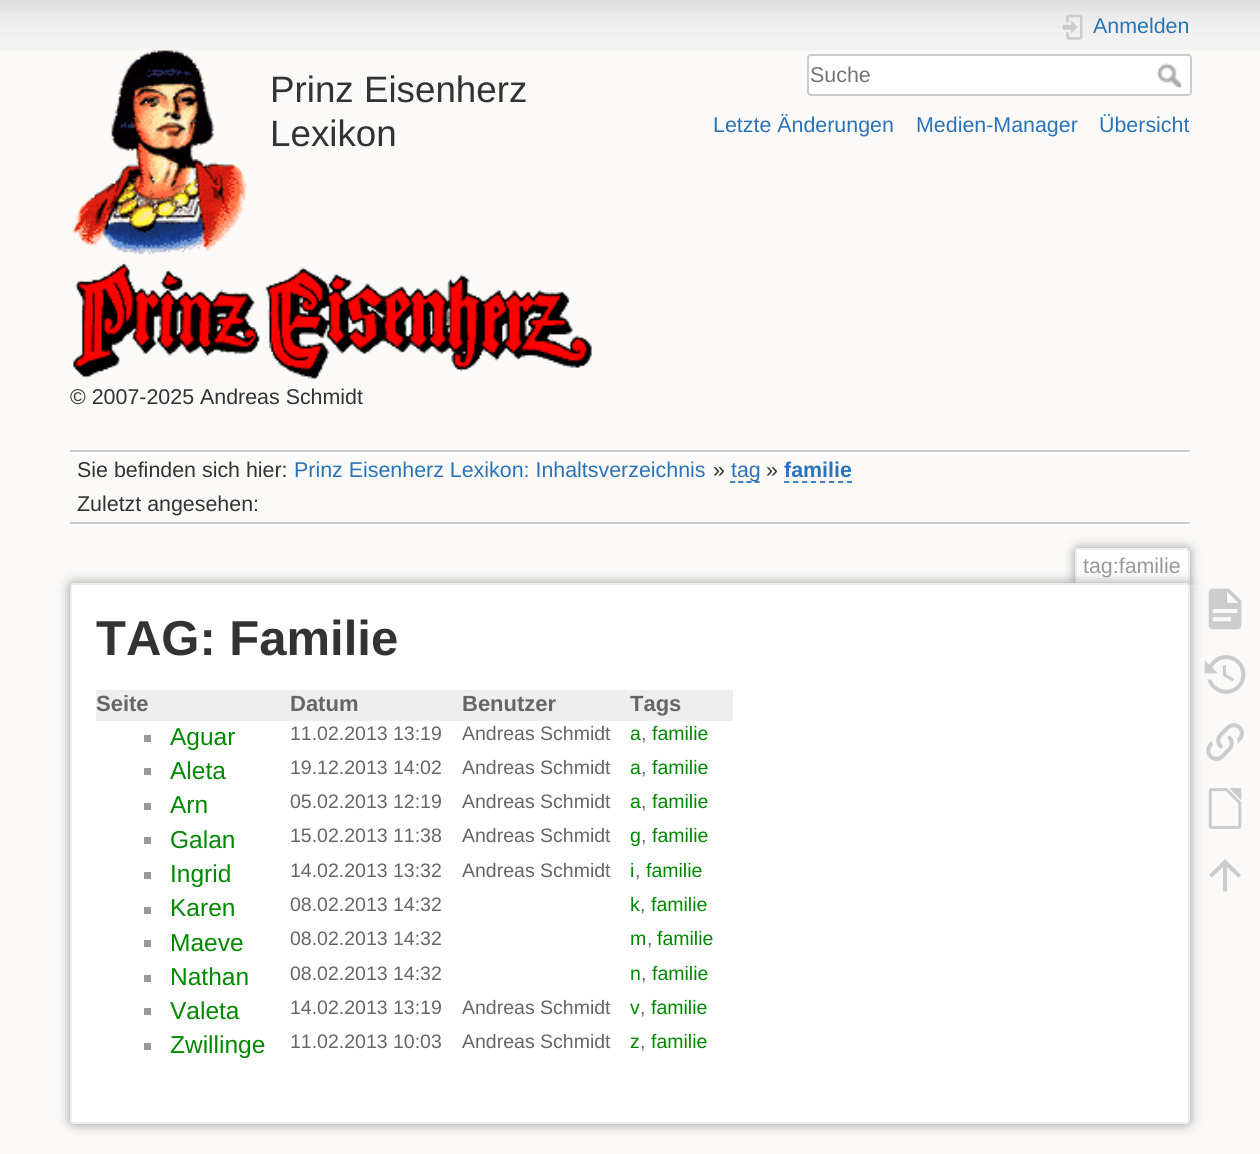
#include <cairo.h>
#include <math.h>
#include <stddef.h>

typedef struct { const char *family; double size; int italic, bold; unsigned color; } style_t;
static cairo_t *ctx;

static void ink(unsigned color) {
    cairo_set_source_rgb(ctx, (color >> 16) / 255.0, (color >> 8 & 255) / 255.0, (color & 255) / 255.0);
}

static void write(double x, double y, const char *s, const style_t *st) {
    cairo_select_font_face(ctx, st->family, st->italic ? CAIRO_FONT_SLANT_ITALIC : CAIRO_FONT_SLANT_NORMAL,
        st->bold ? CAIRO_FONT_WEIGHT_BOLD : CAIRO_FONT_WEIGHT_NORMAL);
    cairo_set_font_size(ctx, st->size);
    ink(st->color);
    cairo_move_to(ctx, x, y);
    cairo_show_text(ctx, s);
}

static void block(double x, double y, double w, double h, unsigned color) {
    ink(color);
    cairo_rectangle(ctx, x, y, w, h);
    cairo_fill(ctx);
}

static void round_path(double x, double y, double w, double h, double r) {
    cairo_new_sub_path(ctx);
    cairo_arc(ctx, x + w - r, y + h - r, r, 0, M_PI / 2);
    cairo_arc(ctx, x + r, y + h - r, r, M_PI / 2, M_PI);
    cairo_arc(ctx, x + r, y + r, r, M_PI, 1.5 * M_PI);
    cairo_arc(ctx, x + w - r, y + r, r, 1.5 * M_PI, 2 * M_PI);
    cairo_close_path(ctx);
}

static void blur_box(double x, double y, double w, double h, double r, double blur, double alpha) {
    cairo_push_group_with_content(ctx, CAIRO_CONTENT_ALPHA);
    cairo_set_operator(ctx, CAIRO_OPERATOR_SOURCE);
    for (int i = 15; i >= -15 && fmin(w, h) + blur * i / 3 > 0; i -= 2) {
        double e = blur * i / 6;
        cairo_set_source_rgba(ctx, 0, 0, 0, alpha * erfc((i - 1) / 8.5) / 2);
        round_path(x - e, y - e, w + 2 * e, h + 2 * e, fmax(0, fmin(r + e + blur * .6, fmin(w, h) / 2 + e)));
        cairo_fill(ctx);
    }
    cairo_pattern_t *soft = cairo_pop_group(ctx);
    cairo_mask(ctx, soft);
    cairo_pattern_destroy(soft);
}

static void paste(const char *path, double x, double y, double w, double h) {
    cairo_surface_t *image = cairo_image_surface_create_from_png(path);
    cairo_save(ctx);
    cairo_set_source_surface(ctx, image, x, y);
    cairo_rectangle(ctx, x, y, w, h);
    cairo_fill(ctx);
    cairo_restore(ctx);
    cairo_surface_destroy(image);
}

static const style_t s1 = {"Liberation Sans", 36.75, 0, 0, 0x333333};
static const style_t s2 = {"Liberation Sans", 21.4, 0, 0, 0x333333};
static const style_t s3 = {"Liberation Sans", 21.4, 0, 0, 0x2b73b7};
static const style_t s4 = {"Liberation Sans", 21.4, 0, 0, 0x757575};
static const style_t s5 = {"Liberation Sans", 21.4, 0, 1, 0x2b73b7};
static const style_t s6 = {"Liberation Sans", 21.4, 0, 0, 0x999999};
static const style_t s7 = {"Liberation Sans", 49, 0, 1, 0x333333};
static const style_t s8 = {"Liberation Sans", 22, 0, 1, 0x666666};
static const style_t s9 = {"Liberation Sans", 24.5, 0, 0, 0x008800};
static const style_t s10 = {"Liberation Sans", 19.5, 0, 0, 0x666666};
static const style_t s11 = {"Liberation Sans", 19.5, 0, 0, 0x008800};

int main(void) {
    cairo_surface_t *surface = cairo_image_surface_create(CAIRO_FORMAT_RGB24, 1260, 1154);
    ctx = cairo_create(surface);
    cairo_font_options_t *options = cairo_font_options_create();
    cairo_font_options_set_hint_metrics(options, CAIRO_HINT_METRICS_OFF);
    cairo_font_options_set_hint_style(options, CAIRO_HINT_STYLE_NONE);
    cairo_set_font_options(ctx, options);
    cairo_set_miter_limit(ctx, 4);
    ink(0xfbfaf9);
    cairo_paint(ctx);
    paste("pic1.png", 0, 0, 1260, 51);
    paste("pic2.png", 71, 49, 177, 206);
    write(270, 102, "Prinz Eisenherz", &s1);
    write(270, 146, "Lexikon", &s1);
    paste("pic3.png", 73, 263, 519, 117);
    write(70, 404, "© 2007-2025 Andreas Schmidt", &s2);
    paste("pic4.png", 1062, 14, 21, 26);
    write(1093, 33, "Anmelden", &s3);
    ink(0xffffff);
    round_path(808, 55, 383, 40, 3);
    cairo_fill_preserve(ctx);
    ink(0xcccccc);
    cairo_stroke(ctx);
    write(810, 82, "Suche", &s4);
    paste("pic5.png", 1157, 63, 25, 25);
    write(713, 132, "Letzte Änderungen", &s3);
    write(916, 132, "Medien-Manager", &s3);
    write(1099, 132, "Übersicht", &s3);
    block(70, 450, 1120, 2, 0xcccccc);
    block(70, 524, 1120, 1, 0xffffff);
    block(70, 452, 1120, 2, 0xffffff);
    write(77, 477, "Sie befinden sich hier:", &s2);
    write(294, 477, "Prinz Eisenherz Lexikon: Inhaltsverzeichnis", &s3);
    write(713, 477, "»", &s2);
    cairo_new_path(ctx);
    cairo_move_to(ctx, 730, 482);
    cairo_line_to(ctx, 759.5, 482);
    ink(0x2b73b7);
    cairo_set_line_width(ctx, 1.8);
    cairo_set_dash(ctx, (double[]){5.25, 2.92}, 2, 0);
    cairo_stroke(ctx);
    write(731, 477, "tag", &s3);
    write(766, 477, "»", &s2);
    write(784, 477, "familie", &s5);
    cairo_new_path(ctx);
    cairo_move_to(ctx, 784, 482);
    cairo_line_to(ctx, 852, 482);
    cairo_set_dash(ctx, (double[]){5.25, 3.75}, 2, 0);
    cairo_stroke(ctx);
    block(70, 522, 1120, 2, 0xcccccc);
    write(77, 511, "Zuletzt angesehen:", &s2);
    cairo_save(ctx);
    cairo_rectangle(ctx, 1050, 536, 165, 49);
    cairo_clip(ctx);
    ink(0x999999);
    blur_box(1075, 548, 115, 37, 4, 5.5, 1);
    cairo_restore(ctx);
    ink(0xffffff);
    cairo_new_path(ctx);
    cairo_move_to(ctx, 1078, 550);
    cairo_line_to(ctx, 1186, 550);
    cairo_curve_to(ctx, 1187, 550, 1188, 551, 1188, 552);
    cairo_line_to(ctx, 1188, 585);
    cairo_line_to(ctx, 1076, 585);
    cairo_line_to(ctx, 1076, 552);
    cairo_curve_to(ctx, 1076, 551, 1077, 550, 1078, 550);
    cairo_close_path(ctx);
    cairo_fill(ctx);
    block(1076, 548, 112, 2, 0xeeeeee);
    block(1188, 550, 2, 35, 0xeeeeee);
    block(1075, 550, 2, 35, 0xeeeeee);
    write(1083, 573, "tag:familie", &s6);
    ink(0x999999);
    blur_box(70, 583, 1120, 541, 4, 6, 1);
    ink(0xffffff);
    round_path(71, 584, 1118, 539, 3);
    cairo_fill_preserve(ctx);
    ink(0xeeeeee);
    cairo_set_line_width(ctx, 2);
    cairo_set_dash(ctx, NULL, 0, 0);
    cairo_stroke(ctx);
    write(96, 655, "TAG: Familie", &s7);
    block(96, 690, 637, 31, 0xeeeeee);
    write(96, 711, "Seite", &s8);
    write(290, 711, "Datum", &s8);
    write(462, 711, "Benutzer", &s8);
    write(630, 711, "Tags", &s8);
    block(144, 735, 7, 7, 0x999999);
    write(170, 745, "Aguar", &s9);
    write(290, 740, "11.02.2013 13:19", &s10);
    write(462, 740, "Andreas Schmidt", &s10);
    write(630, 740, "a", &s11);
    write(641, 740, ",", &s10);
    write(652, 740, "familie", &s11);
    block(144, 768, 7, 7, 0x999999);
    write(170, 779, "Aleta", &s9);
    write(290, 774, "19.12.2013 14:02", &s10);
    write(462, 774, "Andreas Schmidt", &s10);
    write(630, 774, "a", &s11);
    write(641, 774, ",", &s10);
    write(652, 774, "familie", &s11);
    block(144, 803, 7, 7, 0x999999);
    write(170, 813, "Arn", &s9);
    write(290, 808, "05.02.2013 12:19", &s10);
    write(462, 808, "Andreas Schmidt", &s10);
    write(630, 808, "a", &s11);
    write(641, 808, ",", &s10);
    write(652, 808, "familie", &s11);
    block(144, 837, 7, 7, 0x999999);
    write(170, 848, "Galan", &s9);
    write(290, 842, "15.02.2013 11:38", &s10);
    write(462, 842, "Andreas Schmidt", &s10);
    write(630, 842, "g", &s11);
    write(641, 842, ",", &s10);
    write(652, 842, "familie", &s11);
    block(144, 872, 7, 7, 0x999999);
    write(170, 882, "Ingrid", &s9);
    write(290, 877, "14.02.2013 13:32", &s10);
    write(462, 877, "Andreas Schmidt", &s10);
    write(630, 877, "i", &s11);
    write(635, 877, ",", &s10);
    write(646, 877, "familie", &s11);
    block(144, 907, 7, 7, 0x999999);
    write(170, 916, "Karen", &s9);
    write(290, 911, "08.02.2013 14:32", &s10);
    write(630, 911, "k", &s11);
    write(640, 911, ",", &s10);
    write(651, 911, "familie", &s11);
    block(144, 940, 7, 7, 0x999999);
    write(170, 951, "Maeve", &s9);
    write(290, 945, "08.02.2013 14:32", &s10);
    write(630, 945, "m", &s11);
    write(647, 945, ",", &s10);
    write(657, 945, "familie", &s11);
    block(144, 975, 7, 7, 0x999999);
    write(170, 985, "Nathan", &s9);
    write(290, 980, "08.02.2013 14:32", &s10);
    write(630, 980, "n", &s11);
    write(641, 980, ",", &s10);
    write(652, 980, "familie", &s11);
    block(144, 1008, 7, 7, 0x999999);
    write(170, 1019, "Valeta", &s9);
    write(290, 1014, "14.02.2013 13:19", &s10);
    write(462, 1014, "Andreas Schmidt", &s10);
    write(630, 1014, "v", &s11);
    write(640, 1014, ",", &s10);
    write(651, 1014, "familie", &s11);
    block(144, 1043, 7, 7, 0x999999);
    write(170, 1053, "Zwillinge", &s9);
    write(290, 1048, "11.02.2013 10:03", &s10);
    write(462, 1048, "Andreas Schmidt", &s10);
    write(630, 1048, "z", &s11);
    write(640, 1048, ",", &s10);
    write(651, 1048, "familie", &s11);
    paste("pic6.png", 1208, 588, 34, 42);
    paste("pic7.png", 1204, 655, 42, 39);
    paste("pic8.png", 1206, 723, 38, 38);
    paste("pic9.png", 1208, 788, 34, 41);
    ink(0xcccccc);
    cairo_new_path(ctx);
    cairo_move_to(ctx, 1227, 891.5);
    cairo_line_to(ctx, 1223, 891.5);
    cairo_line_to(ctx, 1223, 867);
    cairo_line_to(ctx, 1211.5, 878);
    cairo_line_to(ctx, 1209, 875);
    cairo_line_to(ctx, 1225, 859);
    cairo_line_to(ctx, 1241, 875);
    cairo_line_to(ctx, 1238.5, 878);
    cairo_line_to(ctx, 1227, 867);
    cairo_close_path(ctx);
    cairo_fill(ctx);
    cairo_surface_write_to_png(surface, "screenshot.png");
    cairo_font_options_destroy(options);
    cairo_destroy(ctx);
    cairo_surface_destroy(surface);
    return 0;
}
